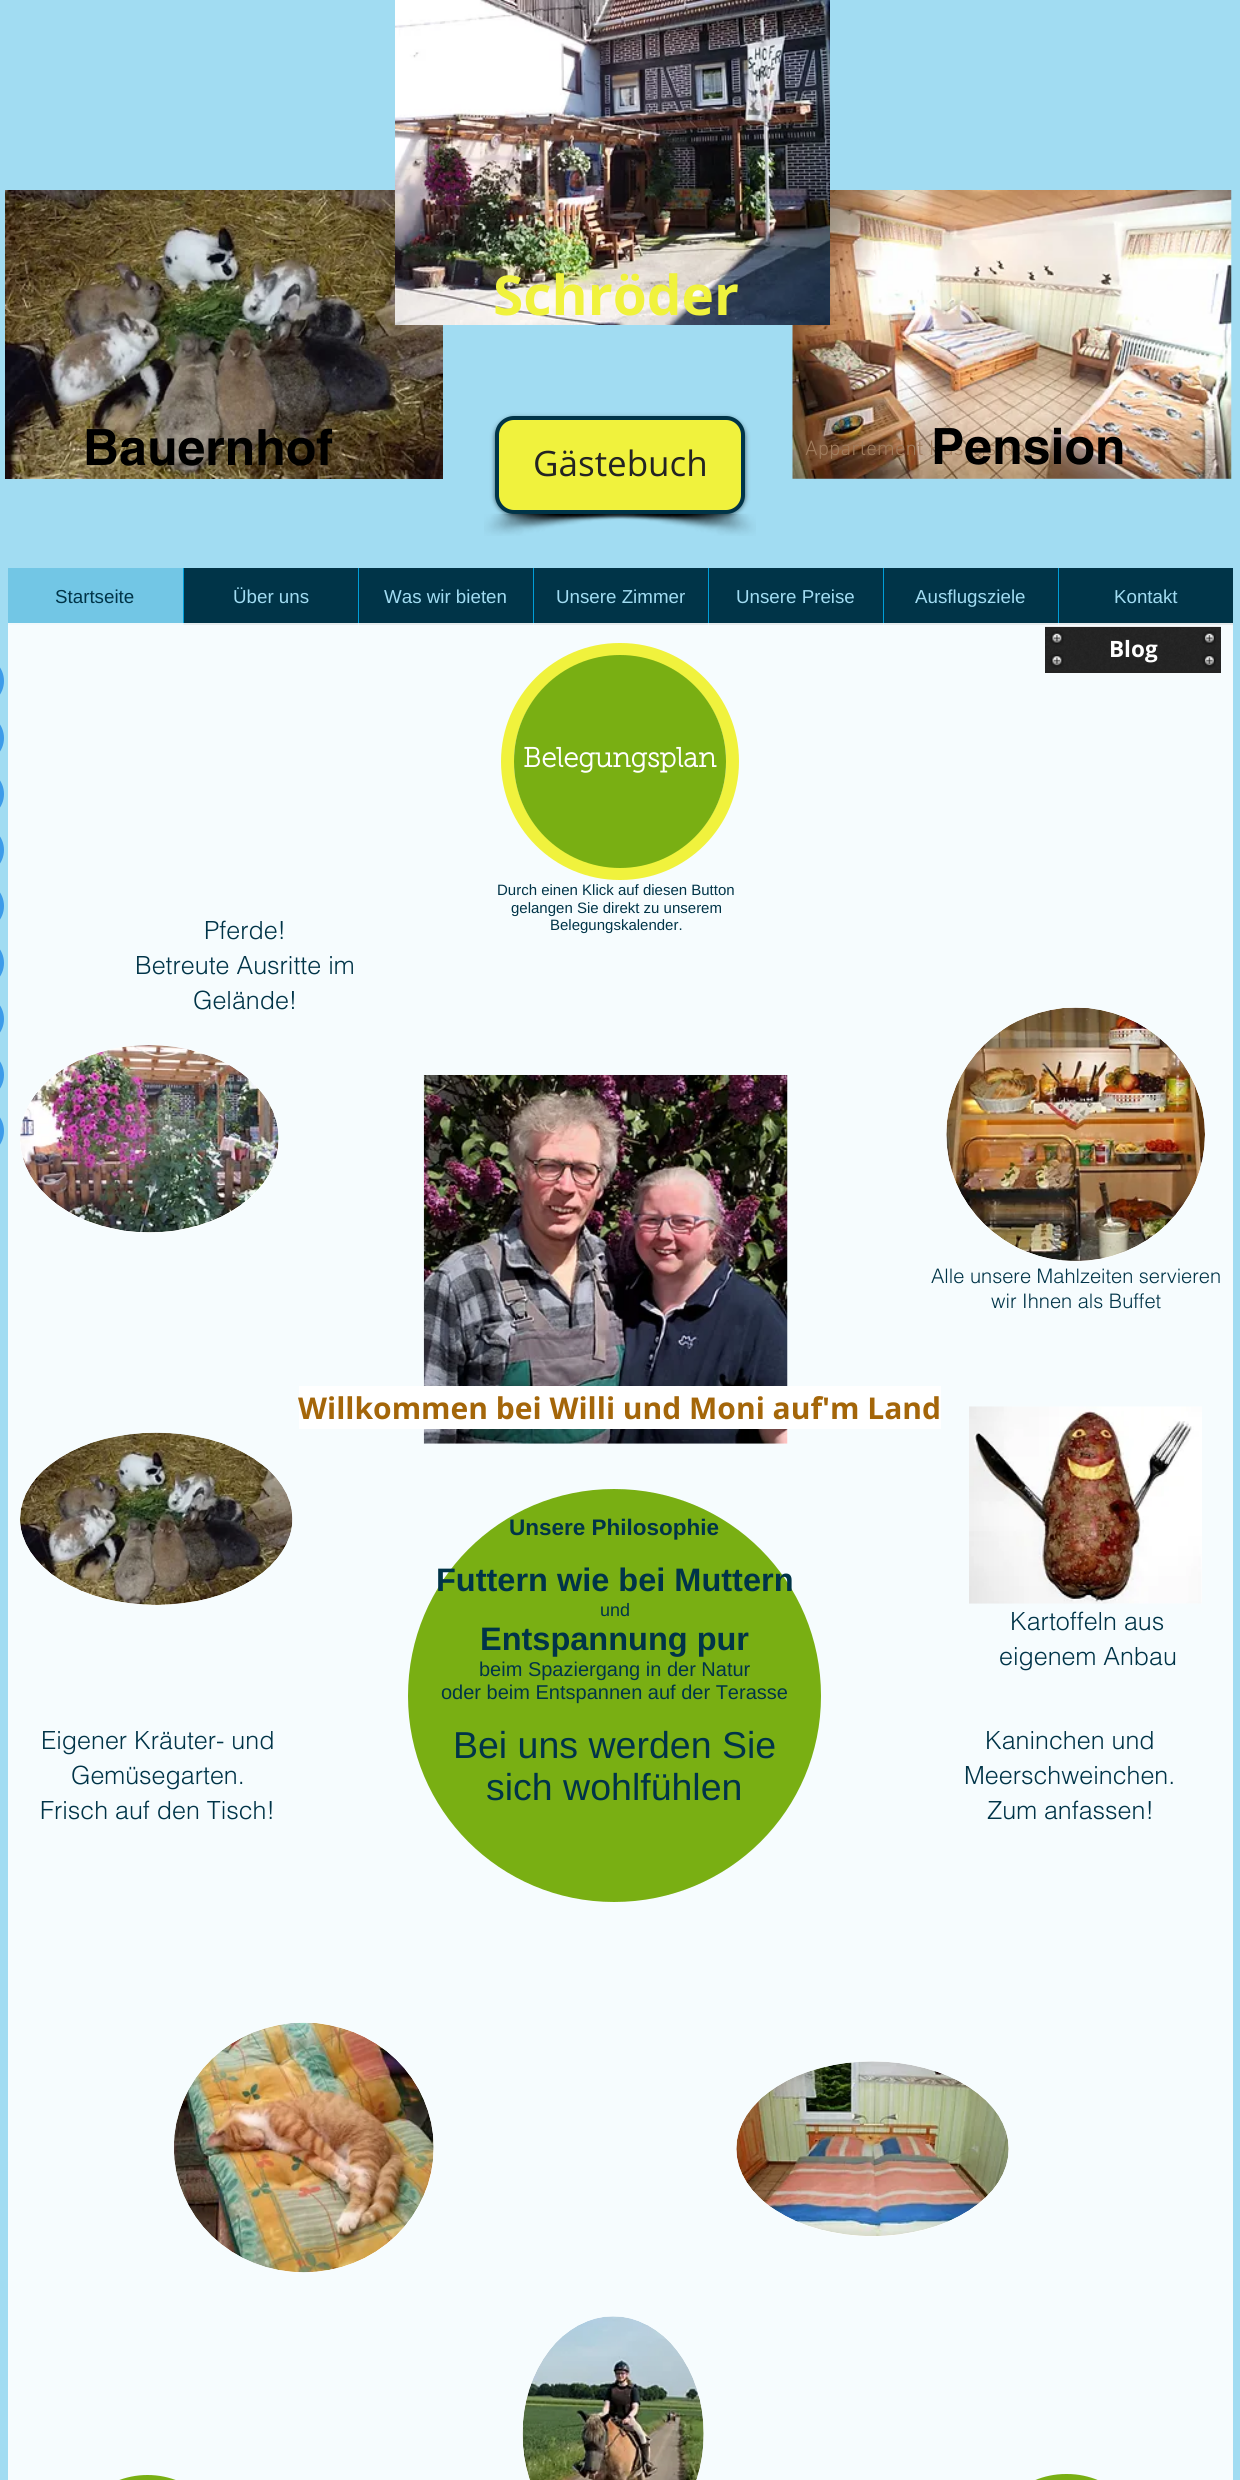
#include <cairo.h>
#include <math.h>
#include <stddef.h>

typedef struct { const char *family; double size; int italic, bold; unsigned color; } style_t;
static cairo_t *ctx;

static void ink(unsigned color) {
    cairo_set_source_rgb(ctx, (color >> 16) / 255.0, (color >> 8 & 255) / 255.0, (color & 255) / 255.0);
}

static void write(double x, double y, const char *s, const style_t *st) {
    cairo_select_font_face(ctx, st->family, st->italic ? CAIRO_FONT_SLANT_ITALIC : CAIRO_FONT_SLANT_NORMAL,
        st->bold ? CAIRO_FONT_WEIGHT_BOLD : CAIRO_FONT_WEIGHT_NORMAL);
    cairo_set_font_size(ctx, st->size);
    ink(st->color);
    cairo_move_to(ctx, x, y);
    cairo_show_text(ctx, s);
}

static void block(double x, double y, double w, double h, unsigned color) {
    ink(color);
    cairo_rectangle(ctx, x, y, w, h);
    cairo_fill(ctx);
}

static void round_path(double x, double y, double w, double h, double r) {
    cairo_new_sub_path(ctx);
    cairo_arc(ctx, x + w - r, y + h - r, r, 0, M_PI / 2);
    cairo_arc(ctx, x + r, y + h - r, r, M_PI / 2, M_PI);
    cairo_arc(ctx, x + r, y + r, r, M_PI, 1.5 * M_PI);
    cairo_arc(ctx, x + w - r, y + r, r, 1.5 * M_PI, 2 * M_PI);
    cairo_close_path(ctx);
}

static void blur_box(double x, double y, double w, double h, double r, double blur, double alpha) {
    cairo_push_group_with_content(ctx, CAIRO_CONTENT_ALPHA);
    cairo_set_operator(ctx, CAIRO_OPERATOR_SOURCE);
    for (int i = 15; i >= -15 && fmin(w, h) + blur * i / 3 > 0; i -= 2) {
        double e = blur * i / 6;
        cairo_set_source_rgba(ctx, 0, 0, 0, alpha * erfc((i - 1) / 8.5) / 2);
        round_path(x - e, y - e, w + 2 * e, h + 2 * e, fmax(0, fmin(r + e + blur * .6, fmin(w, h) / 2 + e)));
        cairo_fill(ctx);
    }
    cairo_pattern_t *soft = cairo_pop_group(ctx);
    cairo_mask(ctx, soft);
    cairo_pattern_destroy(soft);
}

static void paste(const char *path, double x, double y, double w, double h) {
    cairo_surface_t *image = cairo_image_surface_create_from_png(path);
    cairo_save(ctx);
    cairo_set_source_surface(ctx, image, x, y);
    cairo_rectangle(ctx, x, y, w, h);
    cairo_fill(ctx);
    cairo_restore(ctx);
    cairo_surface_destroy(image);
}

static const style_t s1 = {"Open Sans", 55, 0, 1, 0xf0f23d};
static const style_t s2 = {"helvetica", 50, 0, 1, 0x000000};
static const style_t s3 = {"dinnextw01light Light", 21.25, 0, 0, 0xa17d5e};
static const style_t s4 = {"Open Sans", 35, 0, 0, 0x232323};
static const style_t s5 = {"Liberation Sans", 18.75, 0, 0, 0x003448};
static const style_t s6 = {"Liberation Sans", 18.75, 0, 0, 0xa1dcf2};
static const style_t s7 = {"Open Sans", 22.5, 0, 1, 0xffffff};
static const style_t s8 = {"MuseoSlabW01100", 27.5, 0, 1, 0xffffff};
static const style_t s9 = {"Liberation Sans", 15, 0, 0, 0x003448};
static const style_t s10 = {"helvetica Light", 25, 0, 0, 0x003448};
static const style_t s11 = {"helvetica Light", 20, 0, 0, 0x003448};
static const style_t s12 = {"Open Sans", 30, 0, 1, 0xa46609};
static const style_t s13 = {"Liberation Sans", 22.5, 0, 1, 0x003448};
static const style_t s14 = {"Liberation Sans", 32.5, 0, 1, 0x003448};
static const style_t s15 = {"Liberation Sans", 18, 0, 0, 0x003448};
static const style_t s16 = {"Liberation Sans", 20, 0, 0, 0x003448};
static const style_t s17 = {"Liberation Sans", 37.5, 0, 0, 0x003448};

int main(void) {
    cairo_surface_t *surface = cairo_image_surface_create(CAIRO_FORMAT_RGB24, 1240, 2480);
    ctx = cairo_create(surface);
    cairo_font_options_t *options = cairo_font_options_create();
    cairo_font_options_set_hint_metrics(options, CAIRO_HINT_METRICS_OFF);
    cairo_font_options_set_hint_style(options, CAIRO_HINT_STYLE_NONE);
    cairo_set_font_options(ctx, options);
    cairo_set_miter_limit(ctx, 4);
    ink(0xa1dcf2);
    cairo_paint(ctx);
    paste("pic1.png", 5, 190, 438, 289);
    paste("pic5.png", 792, 190, 440, 289);
    paste("pic2.png", 395, 0, 435, 325);
    write(493, 315, "Schröder", &s1);
    write(83, 465, "Bauernhof", &s2);
    write(805, 455, "Appartement Hasenstube", &s3);
    write(931, 464, "Pension", &s2);
    paste("pic3.png", 484, 513, 186, 23);
    paste("pic4.png", 589, 513, 167, 23);
    ink(0x000000);
    blur_box(495, 418, 250, 97, 19, 2.5, 0.6);
    ink(0xf0f23d);
    round_path(497, 418, 246, 94, 17);
    cairo_fill_preserve(ctx);
    ink(0x003448);
    cairo_set_line_width(ctx, 4);
    cairo_stroke(ctx);
    write(533, 476, "Gästebuch", &s4);
    block(184, 568, 1049, 55, 0x003448);
    block(184, 623, 1049, 2, 0xe6ebed);
    block(8, 568, 175, 55, 0x72c6e5);
    block(8, 623, 175, 2, 0xf1f9fc);
    write(55, 603, "Startseite", &s5);
    block(183, 568, 1, 57, 0x009ed8);
    block(183, 623, 1, 2, 0xe6f5fb);
    write(233, 603, "Über uns", &s6);
    block(358, 568, 1, 57, 0x009ed8);
    block(358, 623, 1, 2, 0xe6f5fb);
    write(384, 603, "Was wir bieten", &s6);
    block(533, 568, 1, 57, 0x009ed8);
    block(533, 623, 1, 2, 0xe6f5fb);
    write(556, 603, "Unsere Zimmer", &s6);
    block(708, 568, 1, 57, 0x009ed8);
    block(708, 623, 1, 2, 0xe6f5fb);
    write(736, 603, "Unsere Preise", &s6);
    block(883, 568, 1, 57, 0x009ed8);
    block(883, 623, 1, 2, 0xe6f5fb);
    write(915, 603, "Ausflugsziele", &s6);
    block(1058, 568, 1, 57, 0x009ed8);
    block(1058, 623, 1, 2, 0xe6f5fb);
    write(1114, 603, "Kontakt", &s6);
    ink(0x3d9be9);
    round_path(-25, 656, 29, 50, 25);
    cairo_fill(ctx);
    round_path(-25, 713, 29, 50, 25);
    cairo_fill(ctx);
    round_path(-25, 769, 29, 50, 25);
    cairo_fill(ctx);
    round_path(-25, 825, 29, 50, 25);
    cairo_fill(ctx);
    round_path(-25, 881, 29, 50, 25);
    cairo_fill(ctx);
    round_path(-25, 938, 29, 50, 25);
    cairo_fill(ctx);
    round_path(-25, 994, 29, 50, 25);
    cairo_fill(ctx);
    round_path(-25, 1050, 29, 50, 25);
    cairo_fill(ctx);
    round_path(-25, 1106, 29, 50, 25);
    cairo_fill(ctx);
    block(8, 625, 1225, 1855, 0xf6fcfe);
    block(1045, 627, 176, 46, 0x232323);
    paste("pic6.png", 1045, 628, 176, 43);
    block(1045, 626, 176, 1, 0xededed);
    paste("pic7.png", 1050, 631, 14, 14);
    write(1109, 657, "Blog", &s7);
    paste("pic8.png", 1202, 631, 14, 14);
    paste("pic9.png", 1050, 654, 14, 14);
    paste("pic10.png", 1202, 654, 14, 14);
    round_path(507.5, 649.5, 225, 224, 112);
    ink(0xf0f23d);
    cairo_set_line_width(ctx, 13);
    cairo_stroke(ctx);
    ink(0x79af13);
    round_path(514, 655, 212, 213, 106);
    cairo_fill(ctx);
    write(523, 767, "Belegungsplan", &s8);
    write(497, 895, "Durch einen Klick auf diesen Button", &s9);
    write(511, 913, "gelangen Sie direkt zu unserem", &s9);
    write(550, 930, "Belegungskalender.", &s9);
    write(204, 939, "Pferde!", &s10);
    write(135, 974, "Betreute Ausritte im", &s10);
    write(193, 1009, "Gelände!", &s10);
    ink(0xffffff);
    cairo_new_path(ctx);
    cairo_move_to(ctx, 149.5, 1045);
    cairo_curve_to(ctx, 221, 1045, 279, 1087, 279, 1139);
    cairo_curve_to(ctx, 279, 1191, 221, 1233, 149.5, 1233);
    cairo_curve_to(ctx, 78, 1233, 20, 1191, 20, 1139);
    cairo_curve_to(ctx, 20, 1087, 78, 1045, 149.5, 1045);
    cairo_close_path(ctx);
    cairo_fill(ctx);
    paste("pic11.png", 20, 1045, 259, 188);
    cairo_new_path(ctx);
    cairo_move_to(ctx, 1075.5, 1007.5);
    cairo_curve_to(ctx, 1147, 1007.5, 1205, 1064.5, 1205, 1134.5);
    cairo_curve_to(ctx, 1205, 1204.5, 1147, 1261.5, 1075.5, 1261.5);
    cairo_curve_to(ctx, 1004, 1261.5, 946, 1204.5, 946, 1134.5);
    cairo_curve_to(ctx, 946, 1064.5, 1004, 1007.5, 1075.5, 1007.5);
    cairo_close_path(ctx);
    cairo_fill(ctx);
    paste("pic12.png", 946, 1007, 259, 254);
    write(931, 1283, "Alle unsere Mahlzeiten servieren", &s11);
    write(991, 1308, "wir Ihnen als Buffet", &s11);
    paste("pic13.png", 423, 1075, 365, 369);
    block(299, 1386, 642, 43, 0xffffff);
    write(298, 1419, "Willkommen bei Willi und Moni auf'm Land", &s12);
    ink(0xffffff);
    cairo_new_path(ctx);
    cairo_move_to(ctx, 156, 1433);
    cairo_curve_to(ctx, 231, 1433, 292, 1471.5, 292, 1519);
    cairo_curve_to(ctx, 292, 1566.5, 231, 1605, 156, 1605);
    cairo_curve_to(ctx, 81, 1605, 20, 1566.5, 20, 1519);
    cairo_curve_to(ctx, 20, 1471.5, 81, 1433, 156, 1433);
    cairo_close_path(ctx);
    cairo_fill(ctx);
    paste("pic14.png", 20, 1432, 273, 173);
    ink(0x79af13);
    cairo_new_path(ctx);
    cairo_move_to(ctx, 821, 1696);
    cairo_curve_to(ctx, 821, 1810, 729, 1902, 614, 1902);
    cairo_curve_to(ctx, 500, 1902, 408, 1810, 408, 1696);
    cairo_curve_to(ctx, 408, 1581, 500, 1489, 614, 1489);
    cairo_curve_to(ctx, 729, 1489, 821, 1581, 821, 1696);
    cairo_close_path(ctx);
    cairo_fill(ctx);
    write(509, 1535, "Unsere Philosophie", &s13);
    write(436, 1591, "Futtern wie bei Muttern", &s14);
    write(600, 1616, "und", &s15);
    write(480, 1650, "Entspannung pur", &s14);
    write(479, 1676, "beim Spaziergang in der Natur", &s16);
    write(441, 1699, "oder beim Entspannen auf der Terasse", &s16);
    write(453, 1758, "Bei uns werden Sie", &s17);
    write(486, 1800, "sich wohlfühlen", &s17);
    paste("pic15.png", 969, 1406, 233, 198);
    write(1010, 1630, "Kartoffeln aus", &s10);
    write(999, 1665, "eigenem Anbau", &s10);
    write(41, 1749, "Eigener Kräuter- und", &s10);
    write(71, 1784, "Gemüsegarten.", &s10);
    write(40, 1819, "Frisch auf den Tisch!", &s10);
    write(985, 1749, "Kaninchen und", &s10);
    write(964, 1784, "Meerschweinchen.", &s10);
    write(987, 1819, "Zum anfassen!", &s10);
    ink(0xffffff);
    cairo_new_path(ctx);
    cairo_move_to(ctx, 304, 2022.5);
    cairo_curve_to(ctx, 376, 2022.5, 434, 2078.5, 434, 2147.5);
    cairo_curve_to(ctx, 434, 2216.5, 376, 2272.5, 304, 2272.5);
    cairo_curve_to(ctx, 232, 2272.5, 174, 2216.5, 174, 2147.5);
    cairo_curve_to(ctx, 174, 2078.5, 232, 2022.5, 304, 2022.5);
    cairo_close_path(ctx);
    cairo_fill(ctx);
    paste("pic16.png", 174, 2022, 260, 251);
    cairo_new_path(ctx);
    cairo_move_to(ctx, 872.5, 2061.5);
    cairo_curve_to(ctx, 947.5, 2061.5, 1008.5, 2100.5, 1008.5, 2149);
    cairo_curve_to(ctx, 1008.5, 2197.5, 947.5, 2236.5, 872.5, 2236.5);
    cairo_curve_to(ctx, 797.5, 2236.5, 736.5, 2197.5, 736.5, 2149);
    cairo_curve_to(ctx, 736.5, 2100.5, 797.5, 2061.5, 872.5, 2061.5);
    cairo_close_path(ctx);
    cairo_fill(ctx);
    paste("pic17.png", 736, 2061, 273, 175);
    cairo_new_path(ctx);
    cairo_move_to(ctx, 613, 2316.5);
    cairo_curve_to(ctx, 663, 2316.5, 703.5, 2369, 703.5, 2434);
    cairo_curve_to(ctx, 703.5, 2499, 663, 2551.5, 613, 2551.5);
    cairo_curve_to(ctx, 563, 2551.5, 522.5, 2499, 522.5, 2434);
    cairo_curve_to(ctx, 522.5, 2369, 563, 2316.5, 613, 2316.5);
    cairo_close_path(ctx);
    cairo_fill(ctx);
    paste("pic18.png", 522, 2316, 182, 164);
    ink(0x79af13);
    round_path(66, 2475, 163, 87, 81.5);
    cairo_fill(ctx);
    round_path(985, 2474, 163, 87, 81);
    cairo_fill(ctx);
    cairo_surface_write_to_png(surface, "screenshot.png");
    cairo_font_options_destroy(options);
    cairo_destroy(ctx);
    cairo_surface_destroy(surface);
    return 0;
}
